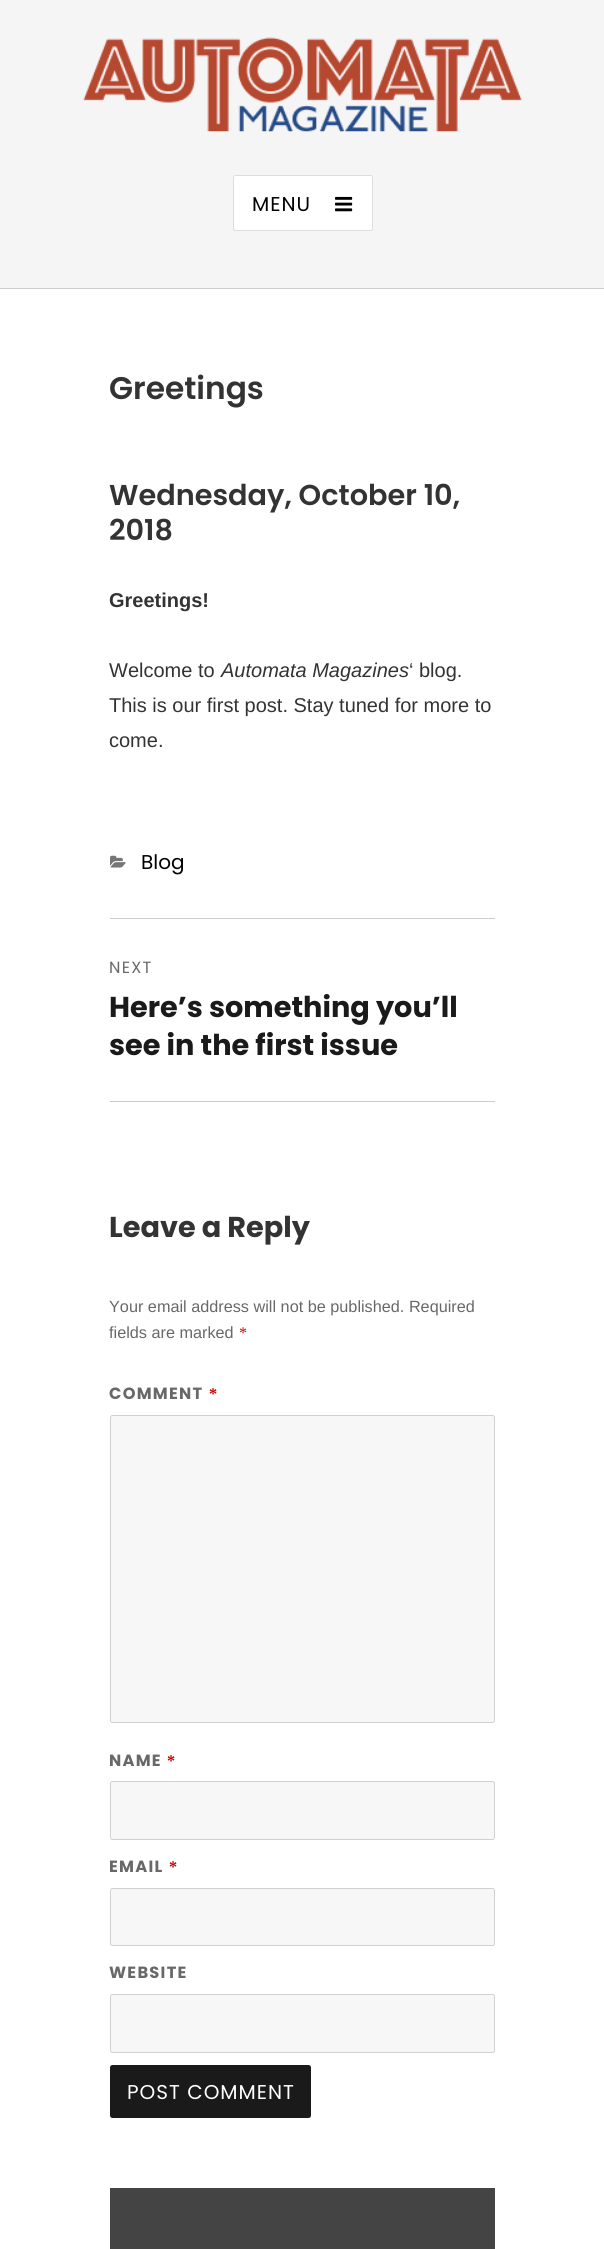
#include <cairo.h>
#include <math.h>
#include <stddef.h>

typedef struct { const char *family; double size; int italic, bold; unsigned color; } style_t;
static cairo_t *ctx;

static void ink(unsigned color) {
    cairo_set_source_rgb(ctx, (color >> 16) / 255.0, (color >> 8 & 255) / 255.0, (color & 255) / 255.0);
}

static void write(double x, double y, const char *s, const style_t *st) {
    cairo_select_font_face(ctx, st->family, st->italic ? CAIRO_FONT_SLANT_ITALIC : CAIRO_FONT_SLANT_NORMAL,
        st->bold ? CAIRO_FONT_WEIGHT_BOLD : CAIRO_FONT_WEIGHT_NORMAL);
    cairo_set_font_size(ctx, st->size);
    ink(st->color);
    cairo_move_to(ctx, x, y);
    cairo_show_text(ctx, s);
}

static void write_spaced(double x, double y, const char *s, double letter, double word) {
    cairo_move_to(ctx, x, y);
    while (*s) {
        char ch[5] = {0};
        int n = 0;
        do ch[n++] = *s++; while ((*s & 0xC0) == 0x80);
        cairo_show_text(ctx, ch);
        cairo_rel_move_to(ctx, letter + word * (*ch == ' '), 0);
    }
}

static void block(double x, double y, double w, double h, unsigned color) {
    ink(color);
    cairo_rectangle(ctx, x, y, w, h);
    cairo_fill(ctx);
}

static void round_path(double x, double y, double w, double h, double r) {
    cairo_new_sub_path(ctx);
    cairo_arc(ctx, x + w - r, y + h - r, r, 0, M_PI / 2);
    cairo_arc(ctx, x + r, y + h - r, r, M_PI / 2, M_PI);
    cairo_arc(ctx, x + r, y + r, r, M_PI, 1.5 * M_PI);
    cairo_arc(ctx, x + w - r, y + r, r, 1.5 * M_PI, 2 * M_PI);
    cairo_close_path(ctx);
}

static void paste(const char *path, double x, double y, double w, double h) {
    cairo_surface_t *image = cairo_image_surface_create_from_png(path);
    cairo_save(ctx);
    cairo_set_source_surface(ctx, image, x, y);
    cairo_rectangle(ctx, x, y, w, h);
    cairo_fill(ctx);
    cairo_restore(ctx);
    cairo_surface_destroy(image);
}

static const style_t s1 = {"Poppins SemiBold", 31.25, 0, 0, 0x333333};
static const style_t s2 = {"Poppins SemiBold", 28.75, 0, 0, 0x333333};
static const style_t s3 = {"Liberation Sans", 20, 0, 1, 0x333333};
static const style_t s4 = {"Liberation Sans", 20, 0, 0, 0x333333};
static const style_t s5 = {"Liberation Sans", 20, 1, 0, 0x333333};
static const style_t s6 = {"Poppins", 20, 0, 0, 0x000000};
static const style_t s7 = {"Poppins", 28.75, 0, 1, 0x1a1a1a};
static const style_t s8 = {"Poppins", 28.75, 0, 1, 0x333333};
static const style_t s9 = {"Liberation Sans", 16.25, 0, 0, 0x686868};
static const style_t s10 = {"Liberation Serif", 16.25, 0, 0, 0xcc0000};

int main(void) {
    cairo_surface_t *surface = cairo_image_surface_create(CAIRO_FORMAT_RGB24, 604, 2249);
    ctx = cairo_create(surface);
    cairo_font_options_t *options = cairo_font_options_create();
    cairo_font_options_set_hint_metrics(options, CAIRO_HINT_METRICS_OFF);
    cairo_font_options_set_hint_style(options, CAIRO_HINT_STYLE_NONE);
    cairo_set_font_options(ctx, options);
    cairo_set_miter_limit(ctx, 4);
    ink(0xffffff);
    cairo_paint(ctx);
    block(0, 0, 604, 288, 0xf5f5f5);
    block(0, 288, 604, 1, 0xcccccc);
    paste("pic1.png", 83, 37, 439, 95);
    ink(0xffffff);
    round_path(233.5, 175.5, 139, 55, 2);
    cairo_fill_preserve(ctx);
    ink(0xdddddd);
    cairo_set_line_width(ctx, 1);
    cairo_stroke(ctx);
    cairo_select_font_face(ctx, "Poppins", CAIRO_FONT_SLANT_NORMAL, CAIRO_FONT_WEIGHT_NORMAL);
    cairo_set_font_size(ctx, 20);
    ink(0x000000);
    write_spaced(252, 211, "MENU", 1, 0);
    paste("pic2.png", 335, 196, 18, 16);
    write(109, 399, "Greetings", &s1);
    write(109, 505, "Wednesday, October 10,", &s2);
    write(109, 540, "2018", &s2);
    write(109, 607, "Greetings!", &s3);
    write(109, 677, "Welcome to", &s4);
    write(221, 677, "Automata Magazines", &s5);
    write(409, 677, "‘ blog.", &s4);
    write(109, 712, "This is our first post. Stay tuned for more to", &s4);
    write(109, 747, "come.", &s4);
    paste("pic3.png", 110, 855, 16, 13);
    write(141, 869, "Blog", &s6);
    block(110, 918, 385, 1, 0xcccccc);
    block(110, 1101, 385, 1, 0xcccccc);
    cairo_set_font_size(ctx, 16.25);
    ink(0x686868);
    write_spaced(109, 973, "NEXT", 1.25, 0);
    write(109, 1017, "Here’s something you’ll", &s7);
    write(109, 1055, "see in the first issue", &s7);
    write(109, 1237, "Leave a Reply", &s8);
    write(109, 1312, "Your email address will not be published. Required", &s9);
    write(109, 1338, "fields are marked", &s9);
    write(239, 1338, "*", &s10);
    cairo_select_font_face(ctx, "Poppins", CAIRO_FONT_SLANT_NORMAL, CAIRO_FONT_WEIGHT_BOLD);
    ink(0x686868);
    write_spaced(109, 1399, "COMMENT", 1.25, 0);
    cairo_select_font_face(ctx, "Liberation Serif", CAIRO_FONT_SLANT_NORMAL, CAIRO_FONT_WEIGHT_BOLD);
    ink(0xcc0000);
    write_spaced(209, 1399, "*", 1.25, 0);
    ink(0xf7f7f7);
    round_path(110.5, 1415.5, 384, 307, 2);
    cairo_fill_preserve(ctx);
    ink(0xd1d1d1);
    cairo_stroke(ctx);
    cairo_select_font_face(ctx, "Poppins", CAIRO_FONT_SLANT_NORMAL, CAIRO_FONT_WEIGHT_BOLD);
    ink(0x686868);
    write_spaced(109, 1766, "NAME", 1.25, 0);
    cairo_select_font_face(ctx, "Liberation Serif", CAIRO_FONT_SLANT_NORMAL, CAIRO_FONT_WEIGHT_BOLD);
    ink(0xcc0000);
    write_spaced(167, 1766, "*", 1.25, 0);
    ink(0xf7f7f7);
    round_path(110.5, 1781.5, 384, 58, 2);
    cairo_fill_preserve(ctx);
    ink(0xd1d1d1);
    cairo_stroke(ctx);
    cairo_select_font_face(ctx, "Poppins", CAIRO_FONT_SLANT_NORMAL, CAIRO_FONT_WEIGHT_BOLD);
    ink(0x686868);
    write_spaced(109, 1872, "EMAIL", 1.25, 0);
    cairo_select_font_face(ctx, "Liberation Serif", CAIRO_FONT_SLANT_NORMAL, CAIRO_FONT_WEIGHT_BOLD);
    ink(0xcc0000);
    write_spaced(169, 1872, "*", 1.25, 0);
    ink(0xf7f7f7);
    round_path(110.5, 1888.5, 384, 57, 2);
    cairo_fill_preserve(ctx);
    ink(0xd1d1d1);
    cairo_stroke(ctx);
    cairo_select_font_face(ctx, "Poppins", CAIRO_FONT_SLANT_NORMAL, CAIRO_FONT_WEIGHT_BOLD);
    ink(0x686868);
    write_spaced(109, 1978, "WEBSITE", 1.25, 0);
    ink(0xf7f7f7);
    round_path(110.5, 1994.5, 384, 58, 2);
    cairo_fill_preserve(ctx);
    ink(0xd1d1d1);
    cairo_stroke(ctx);
    ink(0x1a1a1a);
    round_path(110, 2065, 201, 53, 2.5);
    cairo_fill(ctx);
    cairo_select_font_face(ctx, "Poppins", CAIRO_FONT_SLANT_NORMAL, CAIRO_FONT_WEIGHT_NORMAL);
    cairo_set_font_size(ctx, 20);
    ink(0xffffff);
    write_spaced(127, 2099, "POST COMMENT", 1, 0);
    block(110, 2188, 385, 61, 0x444444);
    cairo_surface_write_to_png(surface, "screenshot.png");
    cairo_font_options_destroy(options);
    cairo_destroy(ctx);
    cairo_surface_destroy(surface);
    return 0;
}
